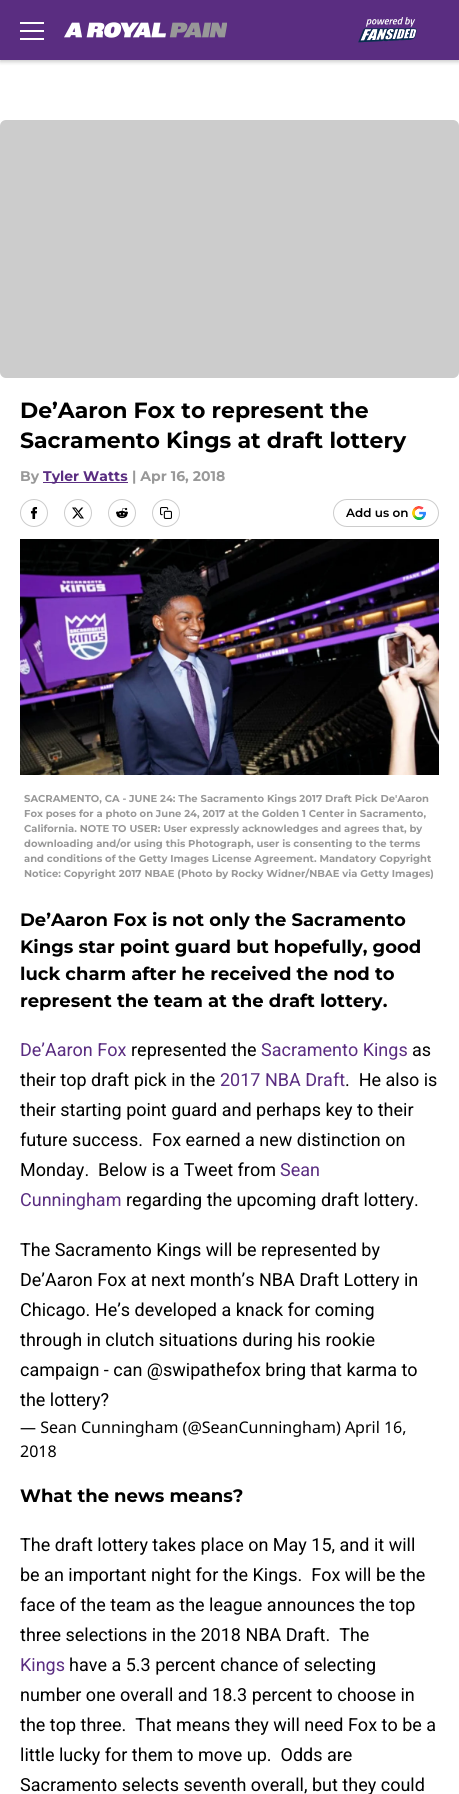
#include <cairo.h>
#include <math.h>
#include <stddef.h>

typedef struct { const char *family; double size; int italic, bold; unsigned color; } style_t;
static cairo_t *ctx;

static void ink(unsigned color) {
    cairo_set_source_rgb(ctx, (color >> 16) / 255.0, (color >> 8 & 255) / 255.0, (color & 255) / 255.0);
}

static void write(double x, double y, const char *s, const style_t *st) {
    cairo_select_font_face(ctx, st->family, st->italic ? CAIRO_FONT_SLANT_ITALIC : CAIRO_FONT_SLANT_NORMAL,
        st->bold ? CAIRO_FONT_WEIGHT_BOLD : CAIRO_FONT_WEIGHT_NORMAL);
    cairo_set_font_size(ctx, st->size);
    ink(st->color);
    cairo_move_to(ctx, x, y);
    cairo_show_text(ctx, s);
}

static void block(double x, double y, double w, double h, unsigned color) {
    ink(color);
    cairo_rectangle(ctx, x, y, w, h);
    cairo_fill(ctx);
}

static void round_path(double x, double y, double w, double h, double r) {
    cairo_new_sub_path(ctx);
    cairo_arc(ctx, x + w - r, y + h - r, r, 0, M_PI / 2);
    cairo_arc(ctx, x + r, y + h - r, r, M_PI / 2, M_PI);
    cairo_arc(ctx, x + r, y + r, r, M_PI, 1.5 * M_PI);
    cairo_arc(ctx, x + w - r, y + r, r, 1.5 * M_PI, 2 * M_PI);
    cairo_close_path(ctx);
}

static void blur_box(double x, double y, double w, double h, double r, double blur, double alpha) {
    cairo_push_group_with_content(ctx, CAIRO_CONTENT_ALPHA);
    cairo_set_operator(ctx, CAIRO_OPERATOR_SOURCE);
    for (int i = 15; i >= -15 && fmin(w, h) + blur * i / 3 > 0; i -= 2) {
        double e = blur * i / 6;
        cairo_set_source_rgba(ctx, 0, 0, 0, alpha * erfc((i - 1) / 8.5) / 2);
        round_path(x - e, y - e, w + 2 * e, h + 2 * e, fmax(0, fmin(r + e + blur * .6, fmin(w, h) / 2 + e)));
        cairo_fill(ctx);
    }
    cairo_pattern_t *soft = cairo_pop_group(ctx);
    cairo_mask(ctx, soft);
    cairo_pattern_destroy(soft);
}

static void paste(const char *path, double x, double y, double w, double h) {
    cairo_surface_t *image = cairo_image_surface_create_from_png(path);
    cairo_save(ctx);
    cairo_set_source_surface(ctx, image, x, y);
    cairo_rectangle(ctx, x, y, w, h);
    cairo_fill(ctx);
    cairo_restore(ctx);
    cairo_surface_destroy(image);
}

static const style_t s1 = {"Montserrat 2 Thin", 22, 0, 0, 0x000000};
static const style_t s2 = {"Montserrat 2 Thin", 14, 0, 0, 0x999999};
static const style_t s3 = {"Montserrat 2 Thin", 14, 0, 0, 0x5a2d81};
static const style_t s4 = {"Montserrat Thin", 12, 0, 0, 0x000000};
static const style_t s5 = {"Montserrat 2 Thin", 10, 0, 0, 0x999999};
static const style_t s6 = {"Montserrat 2 Thin", 18, 0, 0, 0x000000};
static const style_t s7 = {"Roboto", 18, 0, 0, 0x5a2d81};
static const style_t s8 = {"Roboto", 18, 0, 0, 0x000000};
static const style_t s9 = {"Noto Sans", 16, 0, 0, 0x000000};

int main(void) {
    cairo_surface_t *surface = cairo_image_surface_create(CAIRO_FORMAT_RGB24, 459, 1794);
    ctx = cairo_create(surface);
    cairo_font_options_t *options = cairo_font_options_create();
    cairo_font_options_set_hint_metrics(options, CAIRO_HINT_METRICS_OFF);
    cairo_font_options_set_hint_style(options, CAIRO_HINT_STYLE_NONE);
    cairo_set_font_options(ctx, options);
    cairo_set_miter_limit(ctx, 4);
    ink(0xffffff);
    cairo_paint(ctx);
    ink(0x000000);
    blur_box(0, 2, 459, 60, 0, 2, 0.2);
    block(0, 0, 459, 60, 0x5a2d81);
    block(20, 22, 24, 2, 0xffffff);
    block(20, 30, 24, 2, 0xffffff);
    block(20, 38, 24, 2, 0xffffff);
    paste("pic1.png", 64, 22, 163, 16);
    paste("pic2.png", 358, 17, 59, 26);
    ink(0xcccccc);
    round_path(0, 120, 459, 258, 6);
    cairo_fill(ctx);
    write(20, 418, "De’Aaron Fox to represent the", &s1);
    write(20, 448, "Sacramento Kings at draft lottery", &s1);
    write(20, 481, "By", &s2);
    block(43, 482, 85, 1, 0x5a2d81);
    write(43, 481, "Tyler Watts", &s3);
    write(132, 481, "| Apr 16, 2018", &s2);
    cairo_new_path(ctx);
    cairo_arc(ctx, 34, 513, 13.5, 0, 2 * M_PI);
    ink(0xcccccc);
    cairo_set_line_width(ctx, 1);
    cairo_stroke(ctx);
    paste("pic3.png", 30, 507, 8, 12);
    cairo_arc(ctx, 78, 513, 13.5, 0, 2 * M_PI);
    cairo_stroke(ctx);
    paste("pic4.png", 72, 507, 12, 12);
    cairo_arc(ctx, 122, 513, 13.5, 0, 2 * M_PI);
    cairo_stroke(ctx);
    paste("pic5.png", 116, 507, 12, 12);
    cairo_arc(ctx, 166, 513, 13.5, 0, 2 * M_PI);
    cairo_stroke(ctx);
    paste("pic6.png", 160, 507, 12, 12);
    round_path(333.5, 499.5, 105, 27, 13.5);
    cairo_stroke(ctx);
    write(346, 517, "Add us on", &s4);
    paste("pic7.png", 412, 506, 14, 14);
    paste("pic8.png", 20, 539, 419, 236);
    write(24, 802, "SACRAMENTO, CA - JUNE 24: The Sacramento Kings 2017 Draft Pick De'Aaron", &s5);
    write(24, 817, "Fox poses for a photo on June 24, 2017 at the Golden 1 Center in Sacramento,", &s5);
    write(24, 832, "California. NOTE TO USER: User expressly acknowledges and agrees that, by", &s5);
    write(24, 847, "downloading and/or using this Photograph, user is consenting to the terms", &s5);
    write(24, 862, "and conditions of the Getty Images License Agreement. Mandatory Copyright", &s5);
    write(24, 877, "Notice: Copyright 2017 NBAE (Photo by Rocky Widner/NBAE via Getty Images)", &s5);
    write(20, 926, "De’Aaron Fox is not only the Sacramento", &s6);
    write(20, 953, "Kings star point guard but hopefully, good", &s6);
    write(20, 980, "luck charm after he received the nod to", &s6);
    write(20, 1007, "represent the team at the draft lottery.", &s6);
    write(20, 1056, "De’Aaron Fox", &s7);
    write(131, 1056, "represented the", &s8);
    write(261, 1056, "Sacramento Kings", &s7);
    write(412, 1056, "as", &s8);
    write(20, 1086, "their top draft pick in the", &s8);
    write(220, 1086, "2017 NBA Draft", &s7);
    write(345, 1086, ".  He also is", &s8);
    write(20, 1116, "their starting point guard and perhaps key to their", &s8);
    write(20, 1146, "future success.  Fox earned a new distinction on", &s8);
    write(20, 1176, "Monday.  Below is a Tweet from", &s8);
    write(280, 1176, "Sean", &s7);
    write(20, 1206, "Cunningham", &s7);
    write(126, 1206, "regarding the upcoming draft lottery.", &s8);
    write(20, 1256, "The Sacramento Kings will be represented by", &s8);
    write(20, 1286, "De’Aaron Fox at next month’s NBA Draft Lottery in", &s8);
    write(20, 1316, "Chicago. He’s developed a knack for coming", &s8);
    write(20, 1346, "through in clutch situations during his rookie", &s8);
    write(20, 1376, "campaign - can @swipathefox bring that karma to", &s8);
    write(20, 1406, "the lottery?", &s8);
    write(20, 1433, "— Sean Cunningham (@SeanCunningham) April 16,", &s9);
    write(20, 1457, "2018", &s9);
    write(20, 1502, "What the news means?", &s6);
    write(20, 1551, "The draft lottery takes place on May 15, and it will", &s8);
    write(20, 1581, "be an important night for the Kings.  Fox will be the", &s8);
    write(20, 1611, "face of the team as the league announces the top", &s8);
    write(20, 1641, "three selections in the 2018 NBA Draft.  The", &s8);
    write(20, 1671, "Kings", &s7);
    write(69, 1671, "have a 5.3 percent chance of selecting", &s8);
    write(20, 1701, "number one overall and 18.3 percent to choose in", &s8);
    write(20, 1731, "the top three.  That means they will need Fox to be a", &s8);
    write(20, 1761, "little lucky for them to move up.  Odds are", &s8);
    write(20, 1791, "Sacramento selects seventh overall, but they could", &s8);
    cairo_surface_write_to_png(surface, "screenshot.png");
    cairo_font_options_destroy(options);
    cairo_destroy(ctx);
    cairo_surface_destroy(surface);
    return 0;
}
